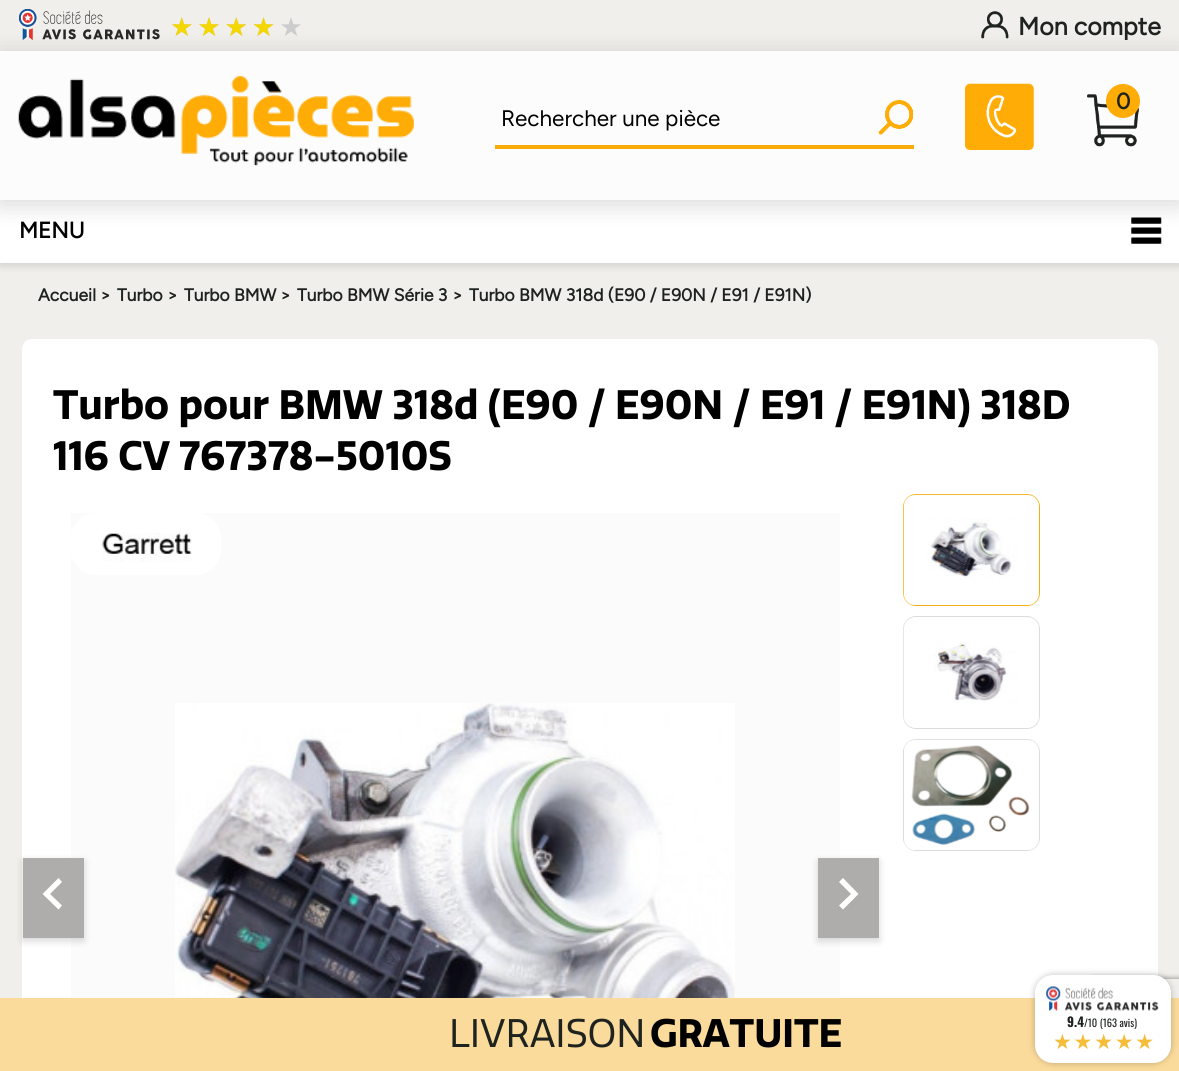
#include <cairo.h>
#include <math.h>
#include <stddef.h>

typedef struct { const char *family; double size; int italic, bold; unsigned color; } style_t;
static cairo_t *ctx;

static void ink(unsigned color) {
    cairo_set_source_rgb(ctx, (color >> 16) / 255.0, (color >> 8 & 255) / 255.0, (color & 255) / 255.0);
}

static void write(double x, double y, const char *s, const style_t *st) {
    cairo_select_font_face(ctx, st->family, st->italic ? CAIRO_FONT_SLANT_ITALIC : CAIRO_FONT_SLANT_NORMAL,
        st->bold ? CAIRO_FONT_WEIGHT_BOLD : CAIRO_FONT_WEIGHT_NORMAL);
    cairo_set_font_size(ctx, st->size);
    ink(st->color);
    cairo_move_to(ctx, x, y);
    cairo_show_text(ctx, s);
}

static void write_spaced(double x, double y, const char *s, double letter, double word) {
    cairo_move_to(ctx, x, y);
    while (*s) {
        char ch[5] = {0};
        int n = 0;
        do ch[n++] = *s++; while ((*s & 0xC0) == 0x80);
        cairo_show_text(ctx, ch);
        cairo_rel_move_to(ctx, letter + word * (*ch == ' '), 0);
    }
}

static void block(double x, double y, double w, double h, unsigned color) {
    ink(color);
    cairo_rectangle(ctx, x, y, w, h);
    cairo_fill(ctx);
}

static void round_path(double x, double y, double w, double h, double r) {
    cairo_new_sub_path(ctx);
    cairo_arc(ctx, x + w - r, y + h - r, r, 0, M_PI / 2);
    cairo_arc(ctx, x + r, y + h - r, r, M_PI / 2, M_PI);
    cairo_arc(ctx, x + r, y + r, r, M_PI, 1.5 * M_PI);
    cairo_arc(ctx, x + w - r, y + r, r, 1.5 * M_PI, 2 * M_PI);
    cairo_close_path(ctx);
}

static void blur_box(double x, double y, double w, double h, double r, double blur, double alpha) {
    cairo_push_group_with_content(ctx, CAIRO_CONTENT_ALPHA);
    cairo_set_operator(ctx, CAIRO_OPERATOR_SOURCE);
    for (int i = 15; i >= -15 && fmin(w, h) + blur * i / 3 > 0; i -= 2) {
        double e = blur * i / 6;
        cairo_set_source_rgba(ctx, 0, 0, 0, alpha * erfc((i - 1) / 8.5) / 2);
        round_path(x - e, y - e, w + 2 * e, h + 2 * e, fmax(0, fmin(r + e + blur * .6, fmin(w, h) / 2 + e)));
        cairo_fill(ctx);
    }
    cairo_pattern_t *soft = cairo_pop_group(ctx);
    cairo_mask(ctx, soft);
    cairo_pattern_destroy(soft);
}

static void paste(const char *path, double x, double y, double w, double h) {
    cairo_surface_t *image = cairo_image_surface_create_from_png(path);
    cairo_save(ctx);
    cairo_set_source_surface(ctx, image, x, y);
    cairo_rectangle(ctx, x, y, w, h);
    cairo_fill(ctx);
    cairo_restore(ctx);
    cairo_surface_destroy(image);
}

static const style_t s1 = {"Figtree", 25, 0, 1, 0x1f2320};
static const style_t s2 = {"Figtree", 22.5, 0, 1, 0x1f2320};
static const style_t s3 = {"Figtree Light", 22.5, 0, 0, 0x000000};
static const style_t s4 = {"Figtree", 22.5, 0, 1, 0x000000};
static const style_t s5 = {"Figtree", 17.5, 0, 1, 0x1f2320};
static const style_t s6 = {"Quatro", 40, 0, 1, 0x000000};
static const style_t s7 = {"Quatro", 38.75, 0, 0, 0x1f2320};
static const style_t s8 = {"Quatro", 38.75, 0, 1, 0x000000};
static const style_t s9 = {"Oswald", 13, 0, 1, 0x1f2320};
static const style_t s10 = {"Oswald", 10.5, 0, 0, 0x1f2320};

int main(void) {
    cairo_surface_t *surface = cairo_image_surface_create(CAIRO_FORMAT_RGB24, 1179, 1071);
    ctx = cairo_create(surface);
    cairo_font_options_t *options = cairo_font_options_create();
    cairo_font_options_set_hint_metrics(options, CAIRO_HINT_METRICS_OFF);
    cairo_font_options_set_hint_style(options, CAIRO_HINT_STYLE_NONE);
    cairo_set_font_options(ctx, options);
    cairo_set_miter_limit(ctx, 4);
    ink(0xf1efeb);
    cairo_paint(ctx);
    paste("pic1.png", 19, 9, 141, 31);
    cairo_select_font_face(ctx, "DejaVu Sans", CAIRO_FONT_SLANT_NORMAL, CAIRO_FONT_WEIGHT_NORMAL);
    cairo_set_font_size(ctx, 26.25);
    ink(0xcccccc);
    write_spaced(170, 36, "★★★★★", 3.75, 0);
    ink(0xf5d700);
    write_spaced(170, 36, "★★★★", 3.75, 0);
    paste("pic2.png", 981, 11, 28, 28);
    write(1018, 35, "Mon compte", &s1);
    ink(0x000000);
    blur_box(0, 204, 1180, 62, 0, 4, 0.13);
    block(0, 200, 1179, 63, 0xffffff);
    ink(0x000000);
    blur_box(0, 55, 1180, 149, 0, 12.5, 0.16);
    block(0, 51, 1179, 149, 0xfcfcfc);
    paste("pic3.png", 18, 76, 397, 90);
    paste("pic4.png", 965, 83, 69, 67);
    paste("pic5.png", 1087, 94, 52, 53);
    ink(0xffac06);
    cairo_arc(ctx, 1123, 101, 17, 0, 2 * M_PI);
    cairo_fill(ctx);
    write(1116, 109, "0", &s2);
    block(495, 145, 419, 4, 0xf7ac08);
    write(501, 126, "Rechercher une pièce", &s3);
    paste("pic6.png", 878, 100, 36, 35);
    paste("pic7.png", 1131, 217, 31, 27);
    write(19, 238, "MENU", &s4);
    write(38, 301, "Accueil", &s5);
    write(100, 301, ">", &s5);
    write(117, 301, "Turbo", &s5);
    write(167, 301, ">", &s5);
    write(184, 301, "Turbo BMW", &s5);
    write(280, 301, ">", &s5);
    write(297, 301, "Turbo BMW Série 3", &s5);
    write(452, 301, ">", &s5);
    write(469, 301, "Turbo BMW 318d (E90 / E90N / E91 / E91N)", &s5);
    ink(0xffffff);
    round_path(21, 339, 1138, 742, 10);
    cairo_fill(ctx);
    round_path(20.5, 337.5, 1139, 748, 11.5);
    ink(0xf1efeb);
    cairo_set_line_width(ctx, 3);
    cairo_stroke(ctx);
    write(53, 419, "Turbo pour BMW 318d (E90 / E90N / E91 / E91N) 318D", &s6);
    write(53, 470, "116 CV 767378-5010S", &s6);
    block(71, 513, 769, 485, 0xfbfbfb);
    paste("pic8.png", 175, 703, 560, 295);
    ink(0xffffff);
    round_path(71, 513, 150, 62, 25);
    cairo_fill(ctx);
    paste("pic9.png", 101, 533, 91, 29);
    ink(0x000000);
    blur_box(23, 861, 61, 80, 0, 4, 0.16);
    block(23, 858, 61, 80, 0xafadab);
    ink(0xffffff);
    cairo_new_path(ctx);
    cairo_move_to(ctx, 62, 882);
    cairo_line_to(ctx, 50, 894);
    cairo_line_to(ctx, 62, 905.5);
    cairo_line_to(ctx, 58.5, 909.5);
    cairo_line_to(ctx, 42.5, 894);
    cairo_line_to(ctx, 58.5, 878);
    cairo_close_path(ctx);
    cairo_fill(ctx);
    ink(0x000000);
    blur_box(818, 861, 61, 80, 0, 4, 0.16);
    block(818, 858, 61, 80, 0xafadab);
    ink(0xffffff);
    cairo_new_path(ctx);
    cairo_move_to(ctx, 843, 878);
    cairo_line_to(ctx, 858.5, 894);
    cairo_line_to(ctx, 843, 909.5);
    cairo_line_to(ctx, 839, 905.5);
    cairo_line_to(ctx, 851, 894);
    cairo_line_to(ctx, 839, 882);
    cairo_close_path(ctx);
    cairo_fill(ctx);
    round_path(903.5, 494.5, 136, 111, 12.5);
    ink(0xf7ac08);
    cairo_set_line_width(ctx, 1);
    cairo_stroke(ctx);
    paste("pic10.png", 903, 494, 137, 112);
    round_path(903.5, 616.5, 136, 112, 12.5);
    ink(0xdcdcdc);
    cairo_stroke(ctx);
    paste("pic11.png", 903, 617, 136, 111);
    round_path(903.5, 739.5, 136, 111, 12.5);
    cairo_stroke(ctx);
    paste("pic12.png", 904, 739, 135, 111);
    cairo_save(ctx);
    cairo_rectangle(ctx, 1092, 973, 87, 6);
    cairo_clip(ctx);
    ink(0x808080);
    blur_box(1093, 979, 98, 75, 2.5, 3, 1);
    cairo_restore(ctx);
    block(0, 998, 1179, 73, 0xfbdb9b);
    write(449, 1047, "LIVRAISON", &s7);
    write(650, 1047, "GRATUITE", &s8);
    ink(0x000000);
    blur_box(1035, 975, 136, 88, 18, 3.5, 0.25);
    ink(0xffffff);
    round_path(1035, 975, 136, 88, 18);
    cairo_fill(ctx);
    paste("pic13.png", 1046, 986, 113, 26);
    write(1067, 1027, "9.4", &s9);
    write(1084, 1027, "/10 (163 avis)", &s10);
    cairo_select_font_face(ctx, "DejaVu Sans", CAIRO_FONT_SLANT_NORMAL, CAIRO_FONT_WEIGHT_NORMAL);
    cairo_set_font_size(ctx, 21);
    ink(0xf4bd3a);
    write_spaced(1053, 1049, "★★★★★", 1.75, 0);
    cairo_surface_write_to_png(surface, "screenshot.png");
    cairo_font_options_destroy(options);
    cairo_destroy(ctx);
    cairo_surface_destroy(surface);
    return 0;
}
